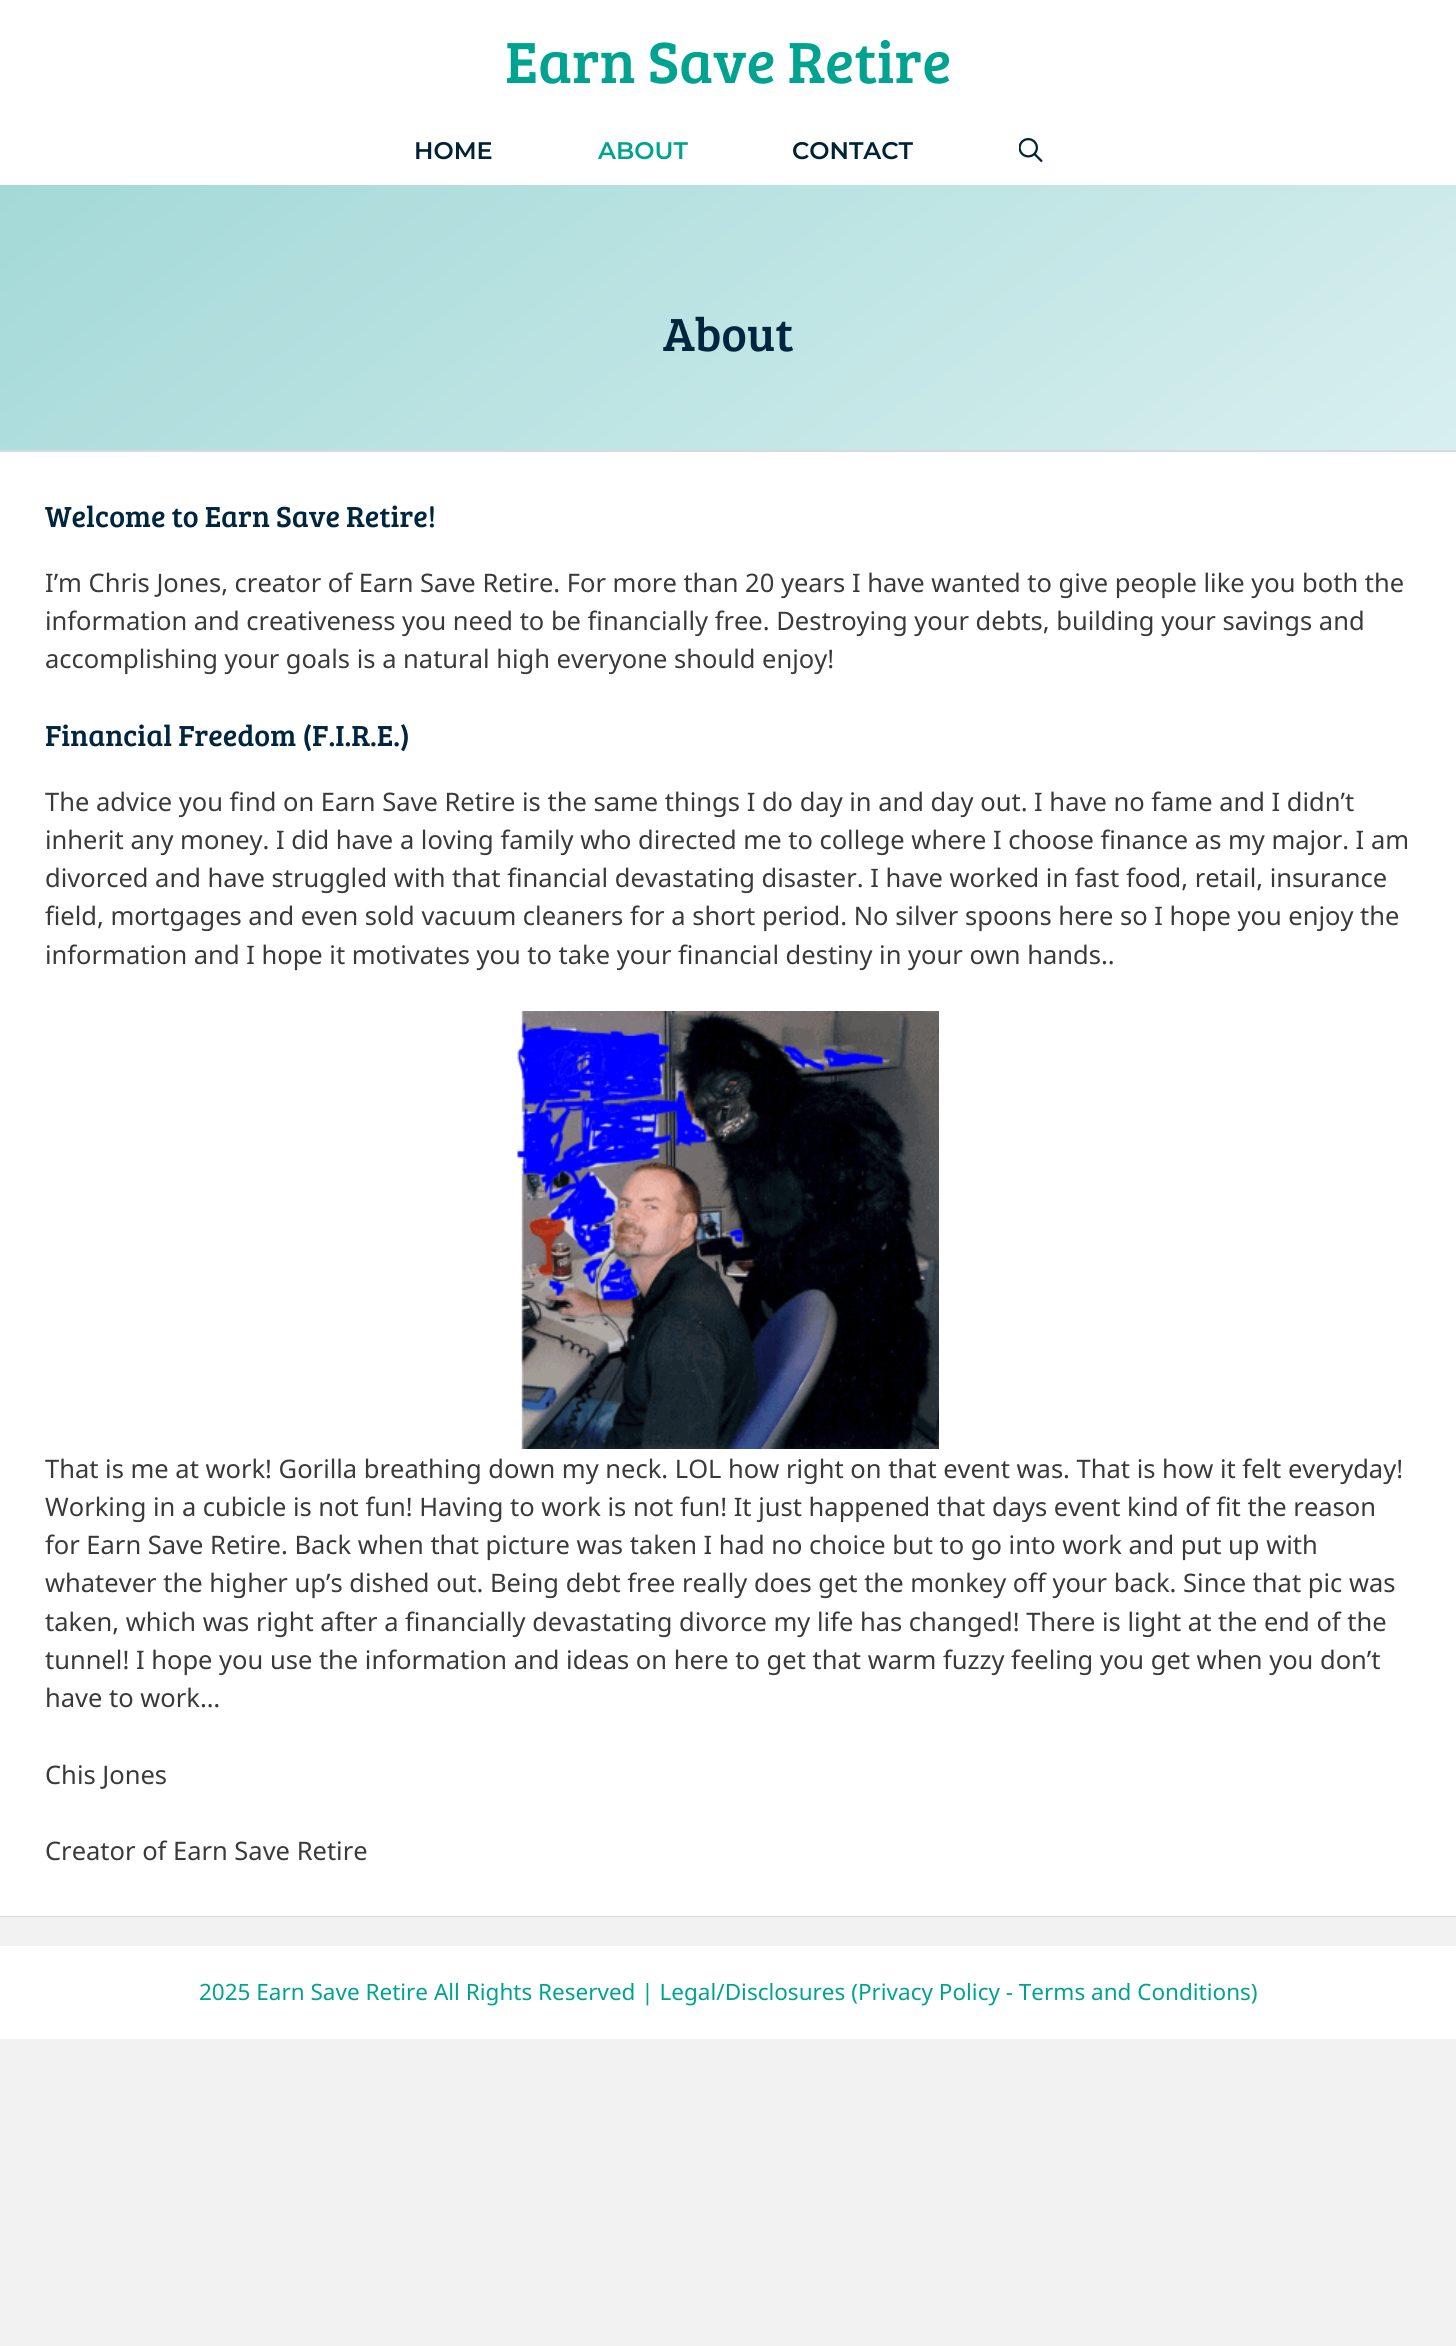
#include <cairo.h>
#include <math.h>
#include <stddef.h>

typedef struct { const char *family; double size; int italic, bold; unsigned color; } style_t;
static cairo_t *ctx;

static void ink(unsigned color) {
    cairo_set_source_rgb(ctx, (color >> 16) / 255.0, (color >> 8 & 255) / 255.0, (color & 255) / 255.0);
}

static void write(double x, double y, const char *s, const style_t *st) {
    cairo_select_font_face(ctx, st->family, st->italic ? CAIRO_FONT_SLANT_ITALIC : CAIRO_FONT_SLANT_NORMAL,
        st->bold ? CAIRO_FONT_WEIGHT_BOLD : CAIRO_FONT_WEIGHT_NORMAL);
    cairo_set_font_size(ctx, st->size);
    ink(st->color);
    cairo_move_to(ctx, x, y);
    cairo_show_text(ctx, s);
}

static void block(double x, double y, double w, double h, unsigned color) {
    ink(color);
    cairo_rectangle(ctx, x, y, w, h);
    cairo_fill(ctx);
}

static void paste(const char *path, double x, double y, double w, double h) {
    cairo_surface_t *image = cairo_image_surface_create_from_png(path);
    cairo_save(ctx);
    cairo_set_source_surface(ctx, image, x, y);
    cairo_rectangle(ctx, x, y, w, h);
    cairo_fill(ctx);
    cairo_restore(ctx);
    cairo_surface_destroy(image);
}

static const style_t s1 = {"Bree Serif", 60, 0, 0, 0x00a390};
static const style_t s2 = {"Montserrat SemiBold", 24, 0, 0, 0x002236};
static const style_t s3 = {"Montserrat SemiBold", 24, 0, 0, 0x00a390};
static const style_t s4 = {"Bree Serif", 48, 0, 0, 0x00253e};
static const style_t s5 = {"Bree Serif", 30, 0, 0, 0x00253e};
static const style_t s6 = {"Noto Sans", 25.5, 0, 0, 0x3a3a3a};
static const style_t s7 = {"Noto Sans", 22.5, 0, 0, 0x00a390};

int main(void) {
    cairo_surface_t *surface = cairo_image_surface_create(CAIRO_FORMAT_RGB24, 1456, 2346);
    ctx = cairo_create(surface);
    cairo_font_options_t *options = cairo_font_options_create();
    cairo_font_options_set_hint_metrics(options, CAIRO_HINT_METRICS_OFF);
    cairo_font_options_set_hint_style(options, CAIRO_HINT_STYLE_NONE);
    cairo_set_font_options(ctx, options);
    cairo_set_miter_limit(ctx, 4);
    cairo_pattern_t *gradient;
    ink(0xf2f2f2);
    cairo_paint(ctx);
    block(0, 0, 1456, 185, 0xffffff);
    write(505, 83, "Earn Save Retire", &s1);
    write(414, 159, "HOME", &s2);
    write(598, 159, "ABOUT", &s3);
    write(792, 159, "CONTACT", &s2);
    paste("pic1.png", 1019, 138, 24, 24);
    gradient = cairo_pattern_create_linear(398, -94, 1059, 850);
    cairo_pattern_add_color_stop_rgba(gradient, 0, 0.639, 0.851, 0.847, 1);
    cairo_pattern_add_color_stop_rgba(gradient, 1, 0.867, 0.945, 0.945, 1);
    cairo_set_source(ctx, gradient);
    cairo_pattern_destroy(gradient);
    cairo_rectangle(ctx, 0, 185, 1456, 265);
    cairo_fill(ctx);
    write(663, 351, "About", &s4);
    cairo_rectangle(ctx, 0, 451, 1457, 1465);
    ink(0xd6dade);
    cairo_stroke(ctx);
    block(0, 452, 1456, 1464, 0xffffff);
    write(45, 527, "Welcome to Earn Save Retire!", &s5);
    write(45, 592, "I’m Chris Jones, creator of Earn Save Retire. For more than 20 years I have wanted to give people like you both the", &s6);
    write(45, 630, "information and creativeness you need to be financially free. Destroying your debts, building your savings and", &s6);
    write(45, 668, "accomplishing your goals is a natural high everyone should enjoy!", &s6);
    write(45, 746, "Financial Freedom (F.I.R.E.)", &s5);
    write(45, 811, "The advice you find on Earn Save Retire is the same things I do day in and day out. I have no fame and I didn’t", &s6);
    write(45, 849, "inherit any money. I did have a loving family who directed me to college where I choose finance as my major. I am", &s6);
    write(45, 887, "divorced and have struggled with that financial devastating disaster. I have worked in fast food, retail, insurance", &s6);
    write(45, 925, "field, mortgages and even sold vacuum cleaners for a short period. No silver spoons here so I hope you enjoy the", &s6);
    write(45, 964, "information and I hope it motivates you to take your financial destiny in your own hands..", &s6);
    paste("pic2.png", 517, 1011, 422, 438);
    write(45, 1478, "That is me at work! Gorilla breathing down my neck. LOL how right on that event was. That is how it felt everyday!", &s6);
    write(45, 1516, "Working in a cubicle is not fun! Having to work is not fun! It just happened that days event kind of fit the reason", &s6);
    write(45, 1554, "for Earn Save Retire. Back when that picture was taken I had no choice but to go into work and put up with", &s6);
    write(45, 1592, "whatever the higher up’s dished out. Being debt free really does get the monkey off your back. Since that pic was", &s6);
    write(45, 1631, "taken, which was right after a financially devastating divorce my life has changed! There is light at the end of the", &s6);
    write(45, 1669, "tunnel! I hope you use the information and ideas on here to get that warm fuzzy feeling you get when you don’t", &s6);
    write(45, 1707, "have to work…", &s6);
    write(45, 1784, "Chis Jones", &s6);
    write(45, 1860, "Creator of Earn Save Retire", &s6);
    block(0, 1946, 1456, 93, 0xffffff);
    write(199, 2000, "2025 Earn Save Retire All Rights Reserved | Legal/Disclosures (Privacy Policy - Terms and Conditions)", &s7);
    cairo_surface_write_to_png(surface, "screenshot.png");
    cairo_font_options_destroy(options);
    cairo_destroy(ctx);
    cairo_surface_destroy(surface);
    return 0;
}
